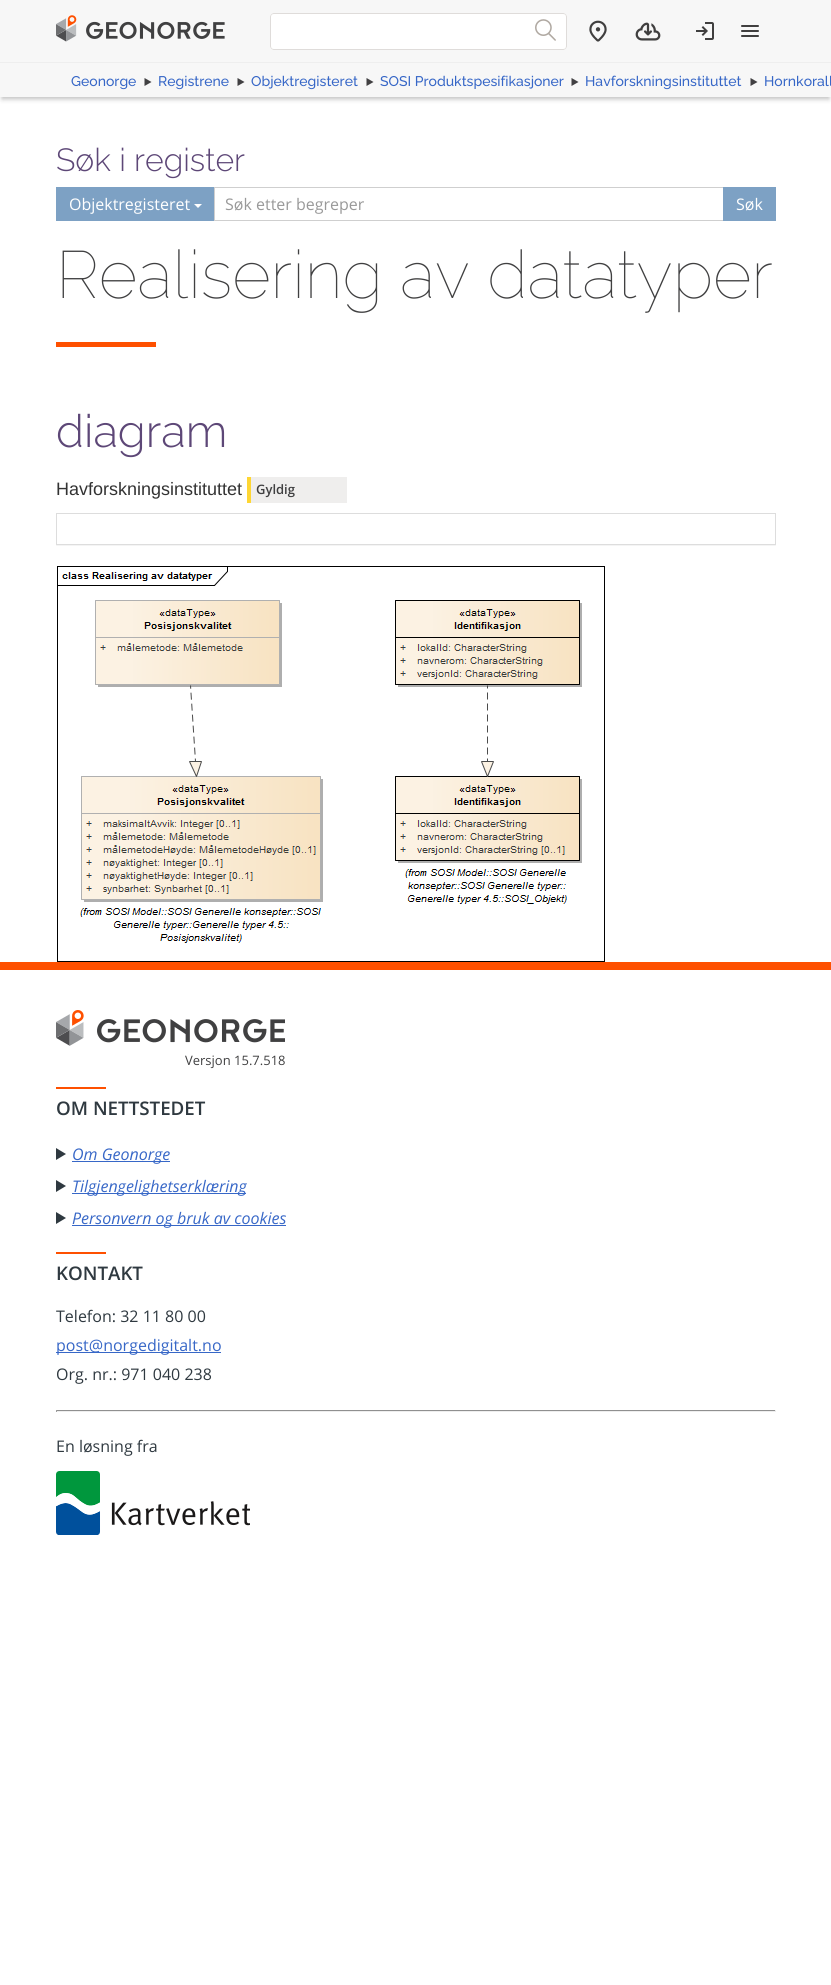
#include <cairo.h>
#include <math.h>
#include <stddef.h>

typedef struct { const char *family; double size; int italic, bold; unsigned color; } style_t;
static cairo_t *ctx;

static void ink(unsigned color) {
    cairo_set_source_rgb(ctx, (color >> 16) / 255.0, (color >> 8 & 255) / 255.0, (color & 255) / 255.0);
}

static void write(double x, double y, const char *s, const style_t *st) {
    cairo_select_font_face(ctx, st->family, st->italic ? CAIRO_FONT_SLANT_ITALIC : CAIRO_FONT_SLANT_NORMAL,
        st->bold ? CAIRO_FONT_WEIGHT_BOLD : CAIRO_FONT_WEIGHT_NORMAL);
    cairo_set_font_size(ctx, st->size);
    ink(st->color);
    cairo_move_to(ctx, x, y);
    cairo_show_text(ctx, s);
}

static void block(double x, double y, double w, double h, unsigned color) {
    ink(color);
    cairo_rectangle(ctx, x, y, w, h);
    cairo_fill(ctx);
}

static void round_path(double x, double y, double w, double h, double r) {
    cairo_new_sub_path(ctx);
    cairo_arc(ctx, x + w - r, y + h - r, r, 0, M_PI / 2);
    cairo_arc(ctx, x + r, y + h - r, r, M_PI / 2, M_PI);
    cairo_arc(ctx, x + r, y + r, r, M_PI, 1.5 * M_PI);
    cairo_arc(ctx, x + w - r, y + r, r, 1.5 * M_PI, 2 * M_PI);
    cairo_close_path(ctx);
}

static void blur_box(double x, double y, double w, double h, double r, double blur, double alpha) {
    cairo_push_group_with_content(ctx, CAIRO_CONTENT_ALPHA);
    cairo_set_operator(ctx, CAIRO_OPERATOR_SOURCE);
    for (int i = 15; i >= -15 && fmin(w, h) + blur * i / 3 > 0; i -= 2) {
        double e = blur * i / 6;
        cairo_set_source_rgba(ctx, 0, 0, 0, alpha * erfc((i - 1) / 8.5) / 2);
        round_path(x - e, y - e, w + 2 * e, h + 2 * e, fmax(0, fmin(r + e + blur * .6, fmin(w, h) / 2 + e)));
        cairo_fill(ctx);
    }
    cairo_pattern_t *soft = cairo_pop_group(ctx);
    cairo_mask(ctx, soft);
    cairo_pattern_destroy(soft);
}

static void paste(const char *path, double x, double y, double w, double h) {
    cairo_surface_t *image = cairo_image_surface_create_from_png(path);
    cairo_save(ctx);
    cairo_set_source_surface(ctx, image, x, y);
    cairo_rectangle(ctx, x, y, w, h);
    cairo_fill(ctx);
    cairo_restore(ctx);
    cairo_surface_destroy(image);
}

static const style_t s1 = {"Raleway Medium", 14, 0, 0, 0x3767c7};
static const style_t s2 = {"Raleway Light", 32, 0, 0, 0x5d4777};
static const style_t s3 = {"Open Sans", 16, 0, 0, 0xffffff};
static const style_t s4 = {"Open Sans", 16, 0, 0, 0x999999};
static const style_t s5 = {"Raleway Thin", 66.75, 0, 0, 0x404041};
static const style_t s6 = {"Raleway Light", 45.5, 0, 0, 0x5d4777};
static const style_t s7 = {"Liberation Sans", 18, 0, 0, 0x333333};
static const style_t s8 = {"Open Sans SemiBold", 13, 0, 0, 0x404041};
static const style_t s9 = {"Open Sans", 13, 0, 0, 0x404041};
static const style_t s10 = {"Open Sans SemiBold", 18.75, 0, 0, 0x2f3940};
static const style_t s11 = {"Open Sans", 16, 1, 0, 0x3767c7};
static const style_t s12 = {"Open Sans", 16, 0, 0, 0x2f3940};
static const style_t s13 = {"Open Sans", 16, 0, 0, 0x3767c7};

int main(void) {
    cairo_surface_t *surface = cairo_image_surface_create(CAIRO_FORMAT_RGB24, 831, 1985);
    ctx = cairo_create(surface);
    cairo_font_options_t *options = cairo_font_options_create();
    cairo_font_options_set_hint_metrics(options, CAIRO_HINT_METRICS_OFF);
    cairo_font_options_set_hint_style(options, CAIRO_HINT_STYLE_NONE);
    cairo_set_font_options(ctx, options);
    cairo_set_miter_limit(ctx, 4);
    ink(0xffffff);
    cairo_paint(ctx);
    ink(0x000000);
    blur_box(2, 68, 827, 31, 0, 2.5, 0.26);
    block(0, 0, 831, 62, 0xf7f7f7);
    paste("pic1.png", 56, 15, 169, 27);
    ink(0xffffff);
    cairo_new_path(ctx);
    cairo_move_to(ctx, 274, 13);
    cairo_line_to(ctx, 525, 13);
    cairo_line_to(ctx, 525, 50);
    cairo_line_to(ctx, 274, 50);
    cairo_curve_to(ctx, 272, 50, 270, 48, 270, 46);
    cairo_line_to(ctx, 270, 17);
    cairo_curve_to(ctx, 270, 15, 272, 13, 274, 13);
    cairo_close_path(ctx);
    cairo_fill(ctx);
    ink(0xdfdcda);
    cairo_set_fill_rule(ctx, CAIRO_FILL_RULE_EVEN_ODD);
    cairo_new_path(ctx);
    cairo_move_to(ctx, 274, 13);
    cairo_line_to(ctx, 525, 13);
    cairo_line_to(ctx, 525, 50);
    cairo_line_to(ctx, 274, 50);
    cairo_curve_to(ctx, 272, 50, 270, 48, 270, 46);
    cairo_line_to(ctx, 270, 17);
    cairo_curve_to(ctx, 270, 15, 272, 13, 274, 13);
    cairo_close_path(ctx);
    cairo_move_to(ctx, 274, 14);
    cairo_line_to(ctx, 525, 14);
    cairo_line_to(ctx, 525, 49);
    cairo_line_to(ctx, 274, 49);
    cairo_curve_to(ctx, 272, 49, 271, 48, 271, 46);
    cairo_line_to(ctx, 271, 17);
    cairo_curve_to(ctx, 271, 15, 272, 14, 274, 14);
    cairo_close_path(ctx);
    cairo_fill(ctx);
    ink(0xffffff);
    cairo_new_path(ctx);
    cairo_move_to(ctx, 525, 13);
    cairo_line_to(ctx, 563, 13);
    cairo_curve_to(ctx, 565, 13, 567, 15, 567, 17);
    cairo_line_to(ctx, 567, 46);
    cairo_curve_to(ctx, 567, 48, 565, 50, 563, 50);
    cairo_line_to(ctx, 525, 50);
    cairo_close_path(ctx);
    cairo_fill(ctx);
    ink(0xdfdcda);
    cairo_new_path(ctx);
    cairo_move_to(ctx, 525, 13);
    cairo_line_to(ctx, 563, 13);
    cairo_curve_to(ctx, 565, 13, 567, 15, 567, 17);
    cairo_line_to(ctx, 567, 46);
    cairo_curve_to(ctx, 567, 48, 565, 50, 563, 50);
    cairo_line_to(ctx, 525, 50);
    cairo_close_path(ctx);
    cairo_move_to(ctx, 525, 14);
    cairo_line_to(ctx, 563, 14);
    cairo_curve_to(ctx, 565, 14, 566, 15, 566, 17);
    cairo_line_to(ctx, 566, 46);
    cairo_curve_to(ctx, 566, 48, 565, 49, 563, 49);
    cairo_line_to(ctx, 525, 49);
    cairo_close_path(ctx);
    cairo_fill(ctx);
    paste("pic2.png", 535, 19, 21, 22);
    paste("pic3.png", 589, 20, 18, 22);
    paste("pic4.png", 635, 22, 26, 19);
    paste("pic5.png", 696, 22, 18, 18);
    paste("pic6.png", 741, 25, 18, 12);
    block(0, 63, 831, 34, 0xf7f7f7);
    block(0, 62, 831, 1, 0xeeeeee);
    write(71, 86, "Geonorge", &s1);
    ink(0x414042);
    cairo_set_fill_rule(ctx, CAIRO_FILL_RULE_WINDING);
    cairo_new_path(ctx);
    cairo_move_to(ctx, 151.5, 82);
    cairo_line_to(ctx, 144.5, 86);
    cairo_line_to(ctx, 144.5, 78);
    cairo_close_path(ctx);
    cairo_fill(ctx);
    write(158, 86, "Registrene", &s1);
    ink(0x414042);
    cairo_new_path(ctx);
    cairo_move_to(ctx, 244.5, 82);
    cairo_line_to(ctx, 237.5, 86);
    cairo_line_to(ctx, 237.5, 78);
    cairo_close_path(ctx);
    cairo_fill(ctx);
    write(251, 86, "Objektregisteret", &s1);
    ink(0x414042);
    cairo_new_path(ctx);
    cairo_move_to(ctx, 373.5, 82);
    cairo_line_to(ctx, 366.5, 86);
    cairo_line_to(ctx, 366.5, 78);
    cairo_close_path(ctx);
    cairo_fill(ctx);
    write(380, 86, "SOSI Produktspesifikasjoner", &s1);
    ink(0x414042);
    cairo_new_path(ctx);
    cairo_move_to(ctx, 578.5, 82);
    cairo_line_to(ctx, 571.5, 86);
    cairo_line_to(ctx, 571.5, 78);
    cairo_close_path(ctx);
    cairo_fill(ctx);
    write(585, 86, "Havforskningsinstituttet", &s1);
    ink(0x414042);
    cairo_new_path(ctx);
    cairo_move_to(ctx, 757.5, 82);
    cairo_line_to(ctx, 750.5, 86);
    cairo_line_to(ctx, 750.5, 78);
    cairo_close_path(ctx);
    cairo_fill(ctx);
    write(764, 86, "Hornkorall", &s1);
    write(56, 171, "Søk i register", &s2);
    block(56, 187, 158, 34, 0x7da1c4);
    write(69, 210, "Objektregisteret", &s3);
    cairo_new_path(ctx);
    cairo_move_to(ctx, 194, 204);
    cairo_line_to(ctx, 202, 204);
    cairo_line_to(ctx, 198, 208);
    cairo_close_path(ctx);
    cairo_fill(ctx);
    cairo_rectangle(ctx, 214.5, 187.5, 509, 33);
    ink(0xcfcfcf);
    cairo_set_line_width(ctx, 1);
    cairo_stroke(ctx);
    write(225, 210, "Søk etter begreper", &s4);
    block(723, 187, 53, 34, 0x7da1c4);
    write(736, 210, "Søk", &s3);
    write(56, 298, "Realisering av datatyper", &s5);
    block(56, 342, 100, 5, 0xfe5000);
    write(56, 447, "diagram", &s6);
    write(56, 495, "Havforskningsinstituttet", &s7);
    block(251, 477, 96, 26, 0xefeeed);
    block(247, 477, 4, 26, 0xfed633);
    write(256, 494, "Gyldig", &s8);
    cairo_save(ctx);
    cairo_rectangle(ctx, 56, 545, 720, 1);
    cairo_clip(ctx);
    ink(0x000000);
    blur_box(56, 514, 720, 32, 0, 0.5, 0.05);
    cairo_restore(ctx);
    cairo_rectangle(ctx, 56.5, 513.5, 719, 31);
    ink(0xdddddd);
    cairo_stroke(ctx);
    paste("pic7.png", 57, 566, 548, 396);
    block(0, 962, 831, 8, 0xfe5000);
    paste("pic8.png", 56, 1010, 229, 36);
    write(185, 1065, "Versjon 15.7.518", &s9);
    block(56, 1087, 50, 2, 0xfe5000);
    write(56, 1115, "OM NETTSTEDET", &s10);
    cairo_new_path(ctx);
    cairo_move_to(ctx, 56, 1160);
    cairo_line_to(ctx, 56, 1148);
    cairo_line_to(ctx, 66, 1154);
    cairo_close_path(ctx);
    cairo_fill(ctx);
    block(72, 1161, 98, 1, 0x3767c7);
    write(72, 1160, "Om Geonorge", &s11);
    ink(0x2f3940);
    cairo_new_path(ctx);
    cairo_move_to(ctx, 56, 1192);
    cairo_line_to(ctx, 56, 1180);
    cairo_line_to(ctx, 66, 1186);
    cairo_close_path(ctx);
    cairo_fill(ctx);
    block(72, 1193, 174, 1, 0x3767c7);
    write(72, 1192, "Tilgjengelighetserklæring", &s11);
    ink(0x2f3940);
    cairo_new_path(ctx);
    cairo_move_to(ctx, 56, 1224);
    cairo_line_to(ctx, 56, 1212);
    cairo_line_to(ctx, 66, 1218);
    cairo_close_path(ctx);
    cairo_fill(ctx);
    block(72, 1225, 214, 1, 0x3767c7);
    write(72, 1224, "Personvern og bruk av cookies", &s11);
    block(56, 1252, 50, 2, 0xfe5000);
    write(56, 1280, "KONTAKT", &s10);
    write(56, 1322, "Telefon: 32 11 80 00", &s12);
    block(56, 1352, 165, 1, 0x3767c7);
    write(56, 1351, "post@norgedigitalt.no", &s13);
    write(56, 1380, "Org. nr.: 971 040 238", &s12);
    block(56, 1410, 720, 1, 0x909090);
    block(775, 1410, 1, 2, 0xeeeeee);
    block(56, 1411, 720, 1, 0xeeeeee);
    block(56, 1410, 1, 2, 0x9f9f9f);
    write(56, 1452, "En løsning fra", &s12);
    paste("pic9.png", 56, 1471, 194, 64);
    cairo_surface_write_to_png(surface, "screenshot.png");
    cairo_font_options_destroy(options);
    cairo_destroy(ctx);
    cairo_surface_destroy(surface);
    return 0;
}
